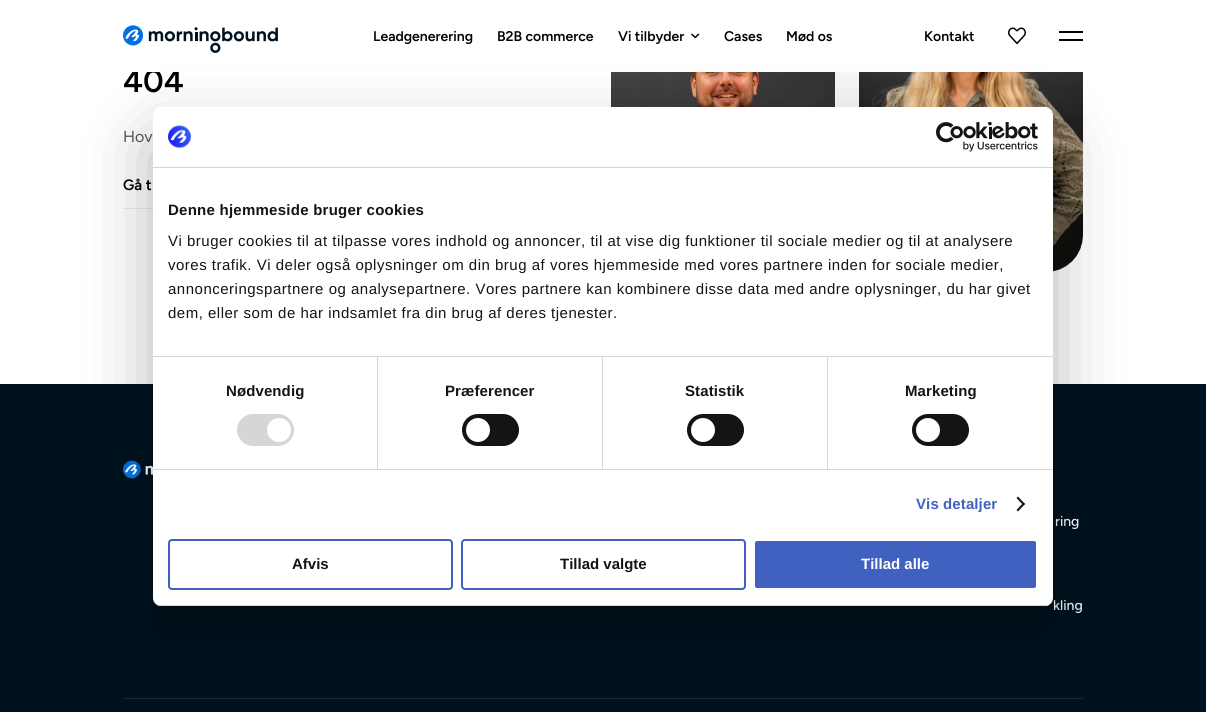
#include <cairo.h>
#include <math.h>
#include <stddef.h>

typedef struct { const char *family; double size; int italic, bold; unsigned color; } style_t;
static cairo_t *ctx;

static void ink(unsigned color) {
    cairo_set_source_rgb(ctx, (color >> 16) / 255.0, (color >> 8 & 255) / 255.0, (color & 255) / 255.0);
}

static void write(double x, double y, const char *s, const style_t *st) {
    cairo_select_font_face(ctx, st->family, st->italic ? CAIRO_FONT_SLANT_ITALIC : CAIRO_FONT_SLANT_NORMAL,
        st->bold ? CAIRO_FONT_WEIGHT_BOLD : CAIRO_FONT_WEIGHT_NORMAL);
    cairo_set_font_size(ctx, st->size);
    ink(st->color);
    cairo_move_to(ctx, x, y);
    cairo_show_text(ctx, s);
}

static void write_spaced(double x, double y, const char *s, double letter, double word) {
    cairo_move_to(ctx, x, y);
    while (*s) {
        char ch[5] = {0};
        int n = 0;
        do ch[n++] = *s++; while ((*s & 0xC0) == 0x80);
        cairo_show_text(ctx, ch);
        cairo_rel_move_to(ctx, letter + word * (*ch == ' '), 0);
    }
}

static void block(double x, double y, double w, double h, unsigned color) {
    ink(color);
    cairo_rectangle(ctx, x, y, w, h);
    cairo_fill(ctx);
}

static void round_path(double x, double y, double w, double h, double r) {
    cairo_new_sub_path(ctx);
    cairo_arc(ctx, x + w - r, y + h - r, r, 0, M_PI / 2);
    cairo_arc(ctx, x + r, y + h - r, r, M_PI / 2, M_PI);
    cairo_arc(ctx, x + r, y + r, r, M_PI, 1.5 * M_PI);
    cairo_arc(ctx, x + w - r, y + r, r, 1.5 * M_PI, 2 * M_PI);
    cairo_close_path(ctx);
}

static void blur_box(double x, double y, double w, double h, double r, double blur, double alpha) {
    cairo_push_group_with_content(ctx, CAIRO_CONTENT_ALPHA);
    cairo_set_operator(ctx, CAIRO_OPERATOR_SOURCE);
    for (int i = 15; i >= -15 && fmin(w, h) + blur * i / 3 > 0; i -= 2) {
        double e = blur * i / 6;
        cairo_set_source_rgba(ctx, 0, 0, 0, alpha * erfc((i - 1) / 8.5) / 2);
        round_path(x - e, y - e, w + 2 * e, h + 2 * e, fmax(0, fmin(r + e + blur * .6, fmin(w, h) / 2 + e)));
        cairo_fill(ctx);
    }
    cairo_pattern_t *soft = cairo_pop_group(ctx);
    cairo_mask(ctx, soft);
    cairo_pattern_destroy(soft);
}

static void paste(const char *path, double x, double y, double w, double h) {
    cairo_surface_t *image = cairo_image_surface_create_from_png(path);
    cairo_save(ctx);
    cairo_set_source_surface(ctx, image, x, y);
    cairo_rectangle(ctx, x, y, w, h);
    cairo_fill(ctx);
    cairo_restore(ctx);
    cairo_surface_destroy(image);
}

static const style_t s1 = {"Figtree SemiBold", 32, 0, 0, 0x000000};
static const style_t s2 = {"Figtree SemiBold", 14, 0, 0, 0x000000};
static const style_t s3 = {"Figtree", 16, 0, 0, 0x555555};
static const style_t s4 = {"Figtree SemiBold", 15, 0, 0, 0x000000};
static const style_t s5 = {"Figtree Medium", 14, 0, 0, 0xffffff};
static const style_t s6 = {"Liberation Sans", 15, 0, 1, 0x141414};
static const style_t s7 = {"Liberation Sans", 15, 0, 1, 0xffffff};

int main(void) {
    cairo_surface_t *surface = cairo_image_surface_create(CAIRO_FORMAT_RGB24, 1206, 712);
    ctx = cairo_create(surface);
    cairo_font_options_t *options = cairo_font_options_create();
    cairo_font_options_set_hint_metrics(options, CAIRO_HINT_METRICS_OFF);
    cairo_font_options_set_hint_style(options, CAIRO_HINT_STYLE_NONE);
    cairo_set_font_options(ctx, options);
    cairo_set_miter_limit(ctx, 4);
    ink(0xffffff);
    cairo_paint(ctx);
    write(123, 92, "404", &s1);
    ink(0xf4f6f7);
    cairo_set_fill_rule(ctx, CAIRO_FILL_RULE_EVEN_ODD);
    cairo_new_path(ctx);
    cairo_move_to(ctx, 850, -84);
    cairo_curve_to(ctx, 942, -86, 1036, -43, 1065, 45);
    cairo_curve_to(ctx, 1094, 133, 1043, 223, 968, 277);
    cairo_curve_to(ctx, 894, 330, 795, 343, 722, 290);
    cairo_curve_to(ctx, 649, 237, 634, 139, 663, 54);
    cairo_curve_to(ctx, 690, -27, 764, -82, 850, -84);
    cairo_close_path(ctx);
    cairo_fill(ctx);
    block(132, 0, 940, 72, 0xffffff);
    paste("pic1.png", 123, 25, 155, 28);
    write(373, 41, "Leadgenerering", &s2);
    write(497, 41, "B2B commerce", &s2);
    write(618, 41, "Vi tilbyder", &s2);
    paste("pic2.png", 690, 33, 10, 6);
    write(724, 41, "Cases", &s2);
    write(786, 41, "Mød os", &s2);
    write(924, 41, "Kontakt", &s2);
    paste("pic3.png", 1008, 27, 18, 18);
    block(1059, 31, 24, 2, 0x000000);
    block(1059, 39, 24, 2, 0x000000);
    write(123, 142, "Hov", &s3);
    write(123, 190, "Gå t", &s4);
    block(123, 208, 30, 1, 0xebeced);
    paste("pic4.png", 611, 72, 224, 35);
    paste("pic5.png", 859, 72, 224, 200);
    block(0, 384, 1206, 328, 0x00121f);
    paste("pic6.png", 123, 460, 30, 19);
    write(1055, 526, "ring", &s5);
    write(1053, 610, "kling", &s5);
    block(123, 698, 960, 1, 0x1a2a35);
    ink(0x000000);
    blur_box(153, 139, 900, 499, 8, 34, 0.3);
    ink(0xffffff);
    round_path(153, 107, 900, 499, 8);
    cairo_fill(ctx);
    block(153, 167, 900, 1, 0xd6d6d6);
    paste("pic7.png", 168, 125, 23, 23);
    paste("pic8.png", 936, 122, 102, 30);
    block(153, 356, 900, 1, 0xd6d6d6);
    cairo_select_font_face(ctx, "Liberation Sans", CAIRO_FONT_SLANT_NORMAL, CAIRO_FONT_WEIGHT_BOLD);
    cairo_set_font_size(ctx, 15);
    ink(0x141414);
    write_spaced(168, 215, "Denne hjemmeside bruger cookies", 0.25, 0);
    cairo_select_font_face(ctx, "Liberation Sans", CAIRO_FONT_SLANT_NORMAL, CAIRO_FONT_WEIGHT_NORMAL);
    write_spaced(168, 246, "Vi bruger cookies til at tilpasse vores indhold og annoncer, til at vise dig funktioner til sociale medier og til at analysere", 0.5, 0);
    write_spaced(168, 270, "vores trafik. Vi deler også oplysninger om din brug af vores hjemmeside med vores partnere inden for sociale medier,", 0.5, 0);
    write_spaced(168, 294, "annonceringspartnere og analysepartnere. Vores partnere kan kombinere disse data med andre oplysninger, du har givet", 0.5, 0);
    write_spaced(168, 318, "dem, eller som de har indsamlet fra din brug af deres tjenester.", 0.5, 0);
    block(153, 469, 900, 1, 0xd6d6d6);
    block(377, 357, 1, 112, 0xd6d6d6);
    cairo_select_font_face(ctx, "Liberation Sans", CAIRO_FONT_SLANT_NORMAL, CAIRO_FONT_WEIGHT_BOLD);
    ink(0x141414);
    write_spaced(226, 396, "Nødvendig", 0.1, 0);
    ink(0xd6d6d6);
    round_path(237, 414, 57, 32, 16);
    cairo_fill(ctx);
    ink(0xffffff);
    cairo_arc(ctx, 279, 430, 12, 0, 2 * M_PI);
    cairo_fill(ctx);
    block(602, 357, 1, 112, 0xd6d6d6);
    ink(0x141414);
    write_spaced(445, 396, "Præferencer", 0.1, 0);
    round_path(462, 414, 57, 32, 16);
    cairo_fill(ctx);
    ink(0xffffff);
    cairo_arc(ctx, 478, 430, 12, 0, 2 * M_PI);
    cairo_fill(ctx);
    block(827, 357, 1, 112, 0xd6d6d6);
    ink(0x141414);
    write_spaced(685, 396, "Statistik", 0.1, 0);
    round_path(687, 414, 57, 32, 16);
    cairo_fill(ctx);
    ink(0xffffff);
    cairo_arc(ctx, 703, 430, 12, 0, 2 * M_PI);
    cairo_fill(ctx);
    ink(0x141414);
    write_spaced(905, 396, "Marketing", 0.1, 0);
    round_path(912, 414, 57, 32, 16);
    cairo_fill(ctx);
    ink(0xffffff);
    cairo_arc(ctx, 928, 430, 12, 0, 2 * M_PI);
    cairo_fill(ctx);
    ink(0x4161c1);
    write_spaced(916, 509, "Vis detaljer", 0.1, 0);
    ink(0x141414);
    cairo_set_fill_rule(ctx, CAIRO_FILL_RULE_WINDING);
    cairo_new_path(ctx);
    cairo_move_to(ctx, 1018, 496.5);
    cairo_line_to(ctx, 1025, 504);
    cairo_line_to(ctx, 1023.5, 505.5);
    cairo_line_to(ctx, 1016.5, 498);
    cairo_close_path(ctx);
    cairo_fill(ctx);
    cairo_new_path(ctx);
    cairo_move_to(ctx, 1023.5, 502.5);
    cairo_line_to(ctx, 1025, 504);
    cairo_line_to(ctx, 1018, 511.5);
    cairo_line_to(ctx, 1016.5, 510);
    cairo_close_path(ctx);
    cairo_fill(ctx);
    cairo_save(ctx);
    round_path(153, 107, 900, 499, 8);
    cairo_clip(ctx);
    block(153, 605, 900, 1, 0xd6d6d6);
    cairo_restore(ctx);
    round_path(169, 540, 283, 49, 3);
    ink(0x4161c1);
    cairo_stroke(ctx);
    write(292, 569, "Afvis", &s6);
    round_path(462, 540, 283, 49, 3);
    ink(0x4161c1);
    cairo_stroke(ctx);
    write(560, 569, "Tillad valgte", &s6);
    ink(0x4161c1);
    round_path(754, 540, 283, 49, 3);
    cairo_fill_preserve(ctx);
    ink(0xffffff);
    cairo_stroke(ctx);
    write(861, 569, "Tillad alle", &s7);
    cairo_surface_write_to_png(surface, "screenshot.png");
    cairo_font_options_destroy(options);
    cairo_destroy(ctx);
    cairo_surface_destroy(surface);
    return 0;
}
